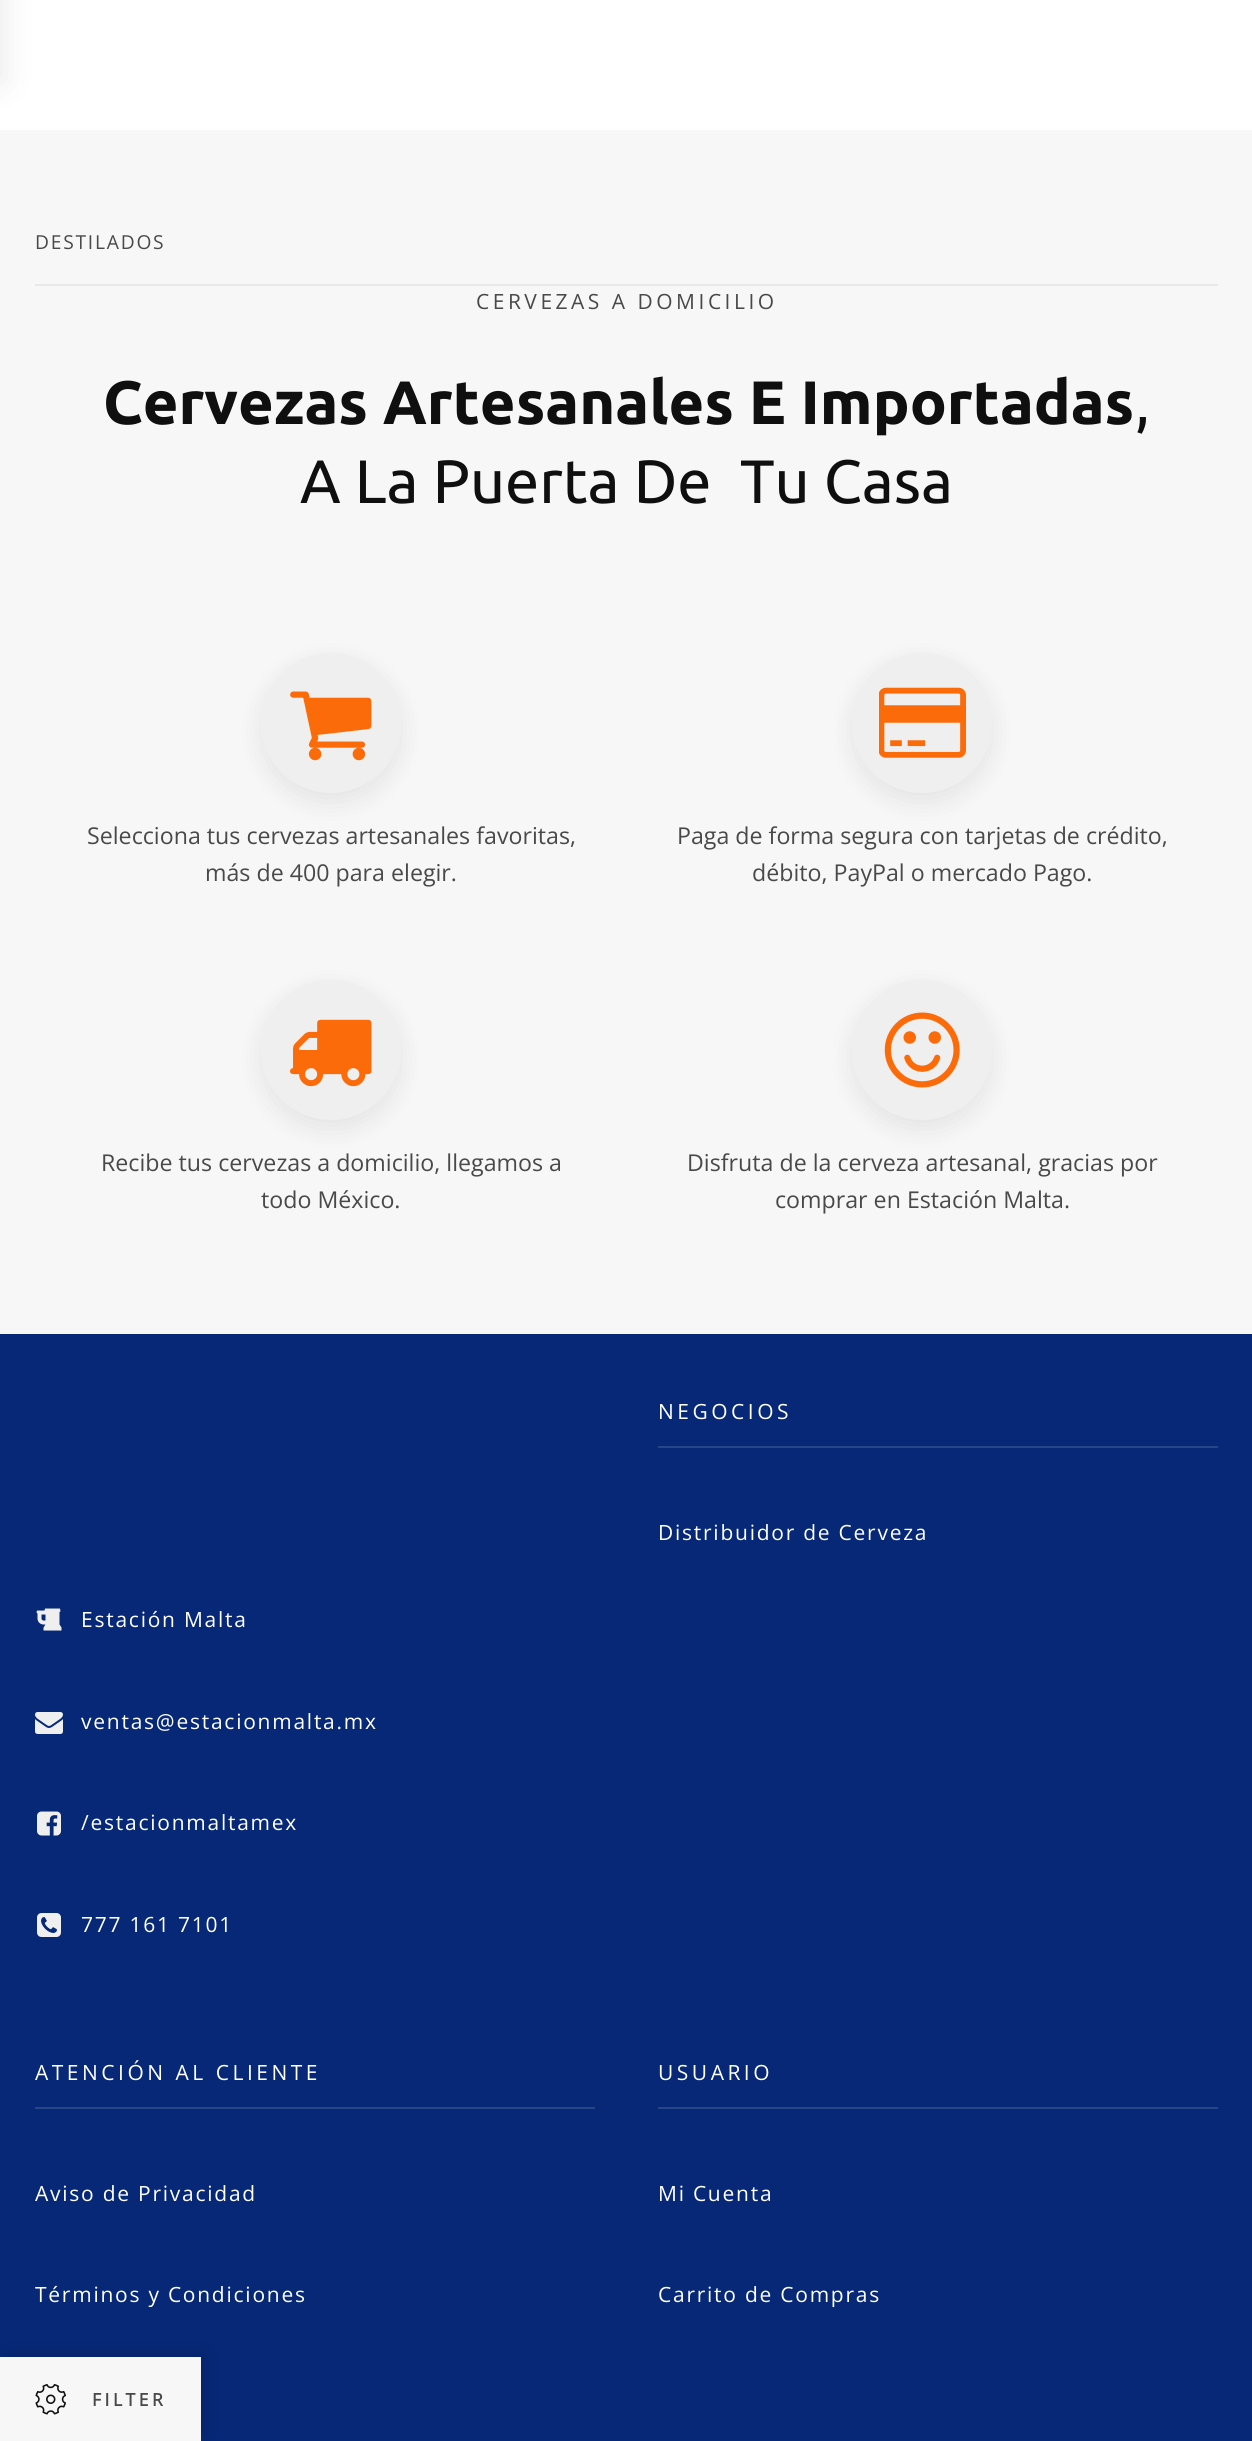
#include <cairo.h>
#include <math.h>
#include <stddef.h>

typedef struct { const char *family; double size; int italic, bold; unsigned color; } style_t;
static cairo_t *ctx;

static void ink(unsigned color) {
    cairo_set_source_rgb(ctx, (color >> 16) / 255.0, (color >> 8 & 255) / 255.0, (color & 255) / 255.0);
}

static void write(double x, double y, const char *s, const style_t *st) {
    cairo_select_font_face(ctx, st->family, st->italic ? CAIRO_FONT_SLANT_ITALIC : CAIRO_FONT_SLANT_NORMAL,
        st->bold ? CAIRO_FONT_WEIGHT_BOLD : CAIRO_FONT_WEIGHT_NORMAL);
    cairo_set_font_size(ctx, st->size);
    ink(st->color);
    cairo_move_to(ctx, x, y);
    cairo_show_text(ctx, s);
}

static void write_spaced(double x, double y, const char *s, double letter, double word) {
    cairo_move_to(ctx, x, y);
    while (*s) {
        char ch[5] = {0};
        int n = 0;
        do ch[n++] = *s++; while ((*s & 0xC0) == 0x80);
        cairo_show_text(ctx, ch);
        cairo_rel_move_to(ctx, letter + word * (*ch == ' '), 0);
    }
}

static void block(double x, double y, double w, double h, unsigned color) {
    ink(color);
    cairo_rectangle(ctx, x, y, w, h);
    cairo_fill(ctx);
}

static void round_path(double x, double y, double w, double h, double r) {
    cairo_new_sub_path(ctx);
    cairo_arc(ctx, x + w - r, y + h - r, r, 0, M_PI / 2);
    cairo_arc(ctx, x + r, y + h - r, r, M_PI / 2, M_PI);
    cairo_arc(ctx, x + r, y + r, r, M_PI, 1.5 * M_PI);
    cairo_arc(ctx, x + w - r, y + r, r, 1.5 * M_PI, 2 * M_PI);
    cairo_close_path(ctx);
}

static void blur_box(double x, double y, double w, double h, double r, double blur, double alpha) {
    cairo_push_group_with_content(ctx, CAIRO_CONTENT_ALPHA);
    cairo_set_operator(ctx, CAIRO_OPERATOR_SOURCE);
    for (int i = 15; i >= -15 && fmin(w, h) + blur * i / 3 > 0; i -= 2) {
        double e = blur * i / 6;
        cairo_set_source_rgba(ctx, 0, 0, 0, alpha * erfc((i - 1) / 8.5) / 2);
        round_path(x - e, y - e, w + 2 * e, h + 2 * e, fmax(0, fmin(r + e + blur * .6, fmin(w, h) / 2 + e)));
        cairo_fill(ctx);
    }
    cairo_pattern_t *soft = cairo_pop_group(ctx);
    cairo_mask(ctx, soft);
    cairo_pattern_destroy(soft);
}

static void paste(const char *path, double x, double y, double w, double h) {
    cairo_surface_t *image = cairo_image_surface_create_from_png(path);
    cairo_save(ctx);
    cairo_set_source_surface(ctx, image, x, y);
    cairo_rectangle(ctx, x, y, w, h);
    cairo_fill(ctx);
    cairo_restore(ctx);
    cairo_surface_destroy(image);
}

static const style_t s1 = {"Ubuntu", 61.25, 0, 1, 0x0f0f0f};
static const style_t s2 = {"Ubuntu", 61.25, 0, 0, 0x0f0f0f};
static const style_t s3 = {"Open Sans", 23.2, 0, 0, 0x494949};

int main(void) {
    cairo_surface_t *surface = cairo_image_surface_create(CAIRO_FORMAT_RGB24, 1252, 2441);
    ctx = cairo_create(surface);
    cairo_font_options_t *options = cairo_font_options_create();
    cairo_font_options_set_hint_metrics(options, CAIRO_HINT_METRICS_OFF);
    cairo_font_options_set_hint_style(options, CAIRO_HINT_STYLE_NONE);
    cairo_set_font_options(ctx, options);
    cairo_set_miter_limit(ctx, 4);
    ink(0xffffff);
    cairo_paint(ctx);
    block(0, 130, 1252, 1204, 0xf7f7f7);
    ink(0x000000);
    blur_box(-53, -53, 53, 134, 0, 17.5, 0.1);
    block(35, 284, 1183, 2, 0xe8e8e8);
    cairo_select_font_face(ctx, "Open Sans", CAIRO_FONT_SLANT_NORMAL, CAIRO_FONT_WEIGHT_NORMAL);
    cairo_set_font_size(ctx, 19.25);
    ink(0x494949);
    write_spaced(35, 249, "DESTILADOS", 1.75, 0);
    cairo_set_font_size(ctx, 21);
    write_spaced(476, 309, "CERVEZAS A DOMICILIO", 3.5, 0);
    write(103, 424, "Cervezas Artesanales E Importadas", &s1);
    write(1135, 424, ",", &s2);
    write(300, 503, "A La Puerta De  Tu Casa", &s2);
    ink(0x000000);
    blur_box(261, 662, 140, 140, 70, 13, 0.08);
    ink(0xefefef);
    cairo_arc(ctx, 331, 723, 70, 0, 2 * M_PI);
    cairo_fill(ctx);
    paste("pic1.png", 290, 691, 82, 70);
    write(87, 844, "Selecciona tus cervezas artesanales favoritas,", &s3);
    write(205, 881, "más de 400 para elegir.", &s3);
    ink(0x000000);
    blur_box(852, 662, 140, 140, 70, 13, 0.08);
    ink(0xefefef);
    cairo_arc(ctx, 922, 723, 70, 0, 2 * M_PI);
    cairo_fill(ctx);
    paste("pic2.png", 879, 687, 87, 71);
    write(677, 844, "Paga de forma segura con tarjetas de crédito,", &s3);
    write(752, 881, "débito, PayPal o mercado Pago.", &s3);
    ink(0x000000);
    blur_box(261, 989, 140, 140, 70, 13, 0.08);
    ink(0xefefef);
    cairo_arc(ctx, 331, 1050, 70, 0, 2 * M_PI);
    cairo_fill(ctx);
    paste("pic3.png", 290, 1019, 82, 68);
    write(101, 1171, "Recibe tus cervezas a domicilio, llegamos a", &s3);
    write(261, 1208, "todo México.", &s3);
    ink(0x000000);
    blur_box(852, 989, 140, 140, 70, 13, 0.08);
    ink(0xefefef);
    cairo_arc(ctx, 922, 1050, 70, 0, 2 * M_PI);
    cairo_fill(ctx);
    paste("pic4.png", 884, 1012, 76, 76);
    write(687, 1171, "Disfruta de la cerveza artesanal, gracias por", &s3);
    write(775, 1208, "comprar en Estación Malta.", &s3);
    block(0, 1334, 1252, 1107, 0x062877);
    block(658, 1446, 560, 2, 0x284588);
    cairo_set_font_size(ctx, 21);
    ink(0xffffff);
    write_spaced(658, 1419, "NEGOCIOS", 3.5, 0);
    write_spaced(658, 1540, "Distribuidor de Cerveza", 1.75, 0);
    paste("pic5.png", 36, 1608, 26, 23);
    write_spaced(81, 1627, "Estación Malta", 1.75, 0);
    paste("pic6.png", 35, 1712, 28, 22);
    write_spaced(81, 1729, "ventas@estacionmalta.mx", 1.75, 0);
    paste("pic7.png", 37, 1811, 24, 25);
    write_spaced(81, 1830, "/estacionmaltamex", 1.75, 0);
    paste("pic8.png", 37, 1913, 24, 24);
    write_spaced(81, 1932, "777 161 7101", 1.75, 0);
    block(35, 2107, 560, 2, 0x284588);
    ink(0xffffff);
    write_spaced(35, 2080, "ATENCIÓN AL CLIENTE", 3.5, 0);
    write_spaced(35, 2201, "Aviso de Privacidad", 1.75, 0);
    write_spaced(35, 2302, "Términos y Condiciones", 1.75, 0);
    block(658, 2107, 560, 2, 0x284588);
    ink(0xffffff);
    write_spaced(658, 2080, "USUARIO", 3.5, 0);
    write_spaced(658, 2201, "Mi Cuenta", 1.75, 0);
    write_spaced(658, 2302, "Carrito de Compras", 1.75, 0);
    ink(0x000000);
    blur_box(5, 2352, 202, 84, 0, 9, 0.1);
    block(0, 2357, 201, 84, 0xf7f7f7);
    paste("pic9.png", 35, 2384, 31, 31);
    cairo_select_font_face(ctx, "Open Sans", CAIRO_FONT_SLANT_NORMAL, CAIRO_FONT_WEIGHT_BOLD);
    cairo_set_font_size(ctx, 17.5);
    ink(0x494949);
    write_spaced(92, 2406, "FILTER", 3.5, 0);
    cairo_surface_write_to_png(surface, "screenshot.png");
    cairo_font_options_destroy(options);
    cairo_destroy(ctx);
    cairo_surface_destroy(surface);
    return 0;
}
